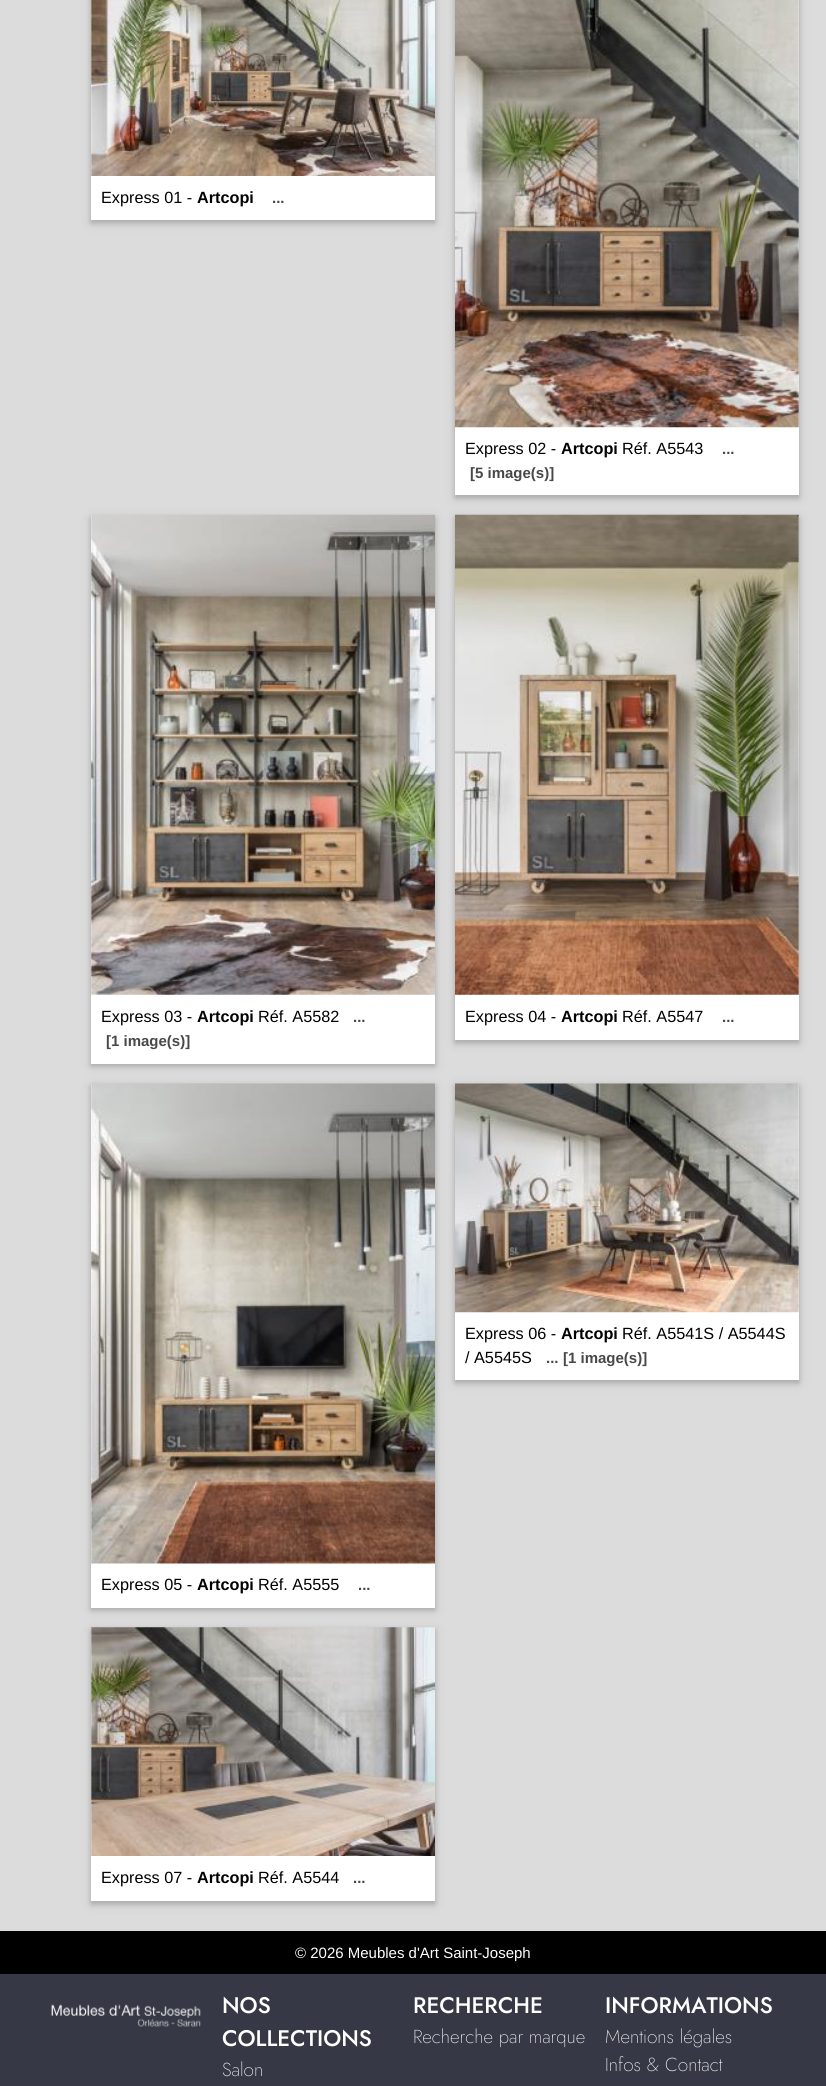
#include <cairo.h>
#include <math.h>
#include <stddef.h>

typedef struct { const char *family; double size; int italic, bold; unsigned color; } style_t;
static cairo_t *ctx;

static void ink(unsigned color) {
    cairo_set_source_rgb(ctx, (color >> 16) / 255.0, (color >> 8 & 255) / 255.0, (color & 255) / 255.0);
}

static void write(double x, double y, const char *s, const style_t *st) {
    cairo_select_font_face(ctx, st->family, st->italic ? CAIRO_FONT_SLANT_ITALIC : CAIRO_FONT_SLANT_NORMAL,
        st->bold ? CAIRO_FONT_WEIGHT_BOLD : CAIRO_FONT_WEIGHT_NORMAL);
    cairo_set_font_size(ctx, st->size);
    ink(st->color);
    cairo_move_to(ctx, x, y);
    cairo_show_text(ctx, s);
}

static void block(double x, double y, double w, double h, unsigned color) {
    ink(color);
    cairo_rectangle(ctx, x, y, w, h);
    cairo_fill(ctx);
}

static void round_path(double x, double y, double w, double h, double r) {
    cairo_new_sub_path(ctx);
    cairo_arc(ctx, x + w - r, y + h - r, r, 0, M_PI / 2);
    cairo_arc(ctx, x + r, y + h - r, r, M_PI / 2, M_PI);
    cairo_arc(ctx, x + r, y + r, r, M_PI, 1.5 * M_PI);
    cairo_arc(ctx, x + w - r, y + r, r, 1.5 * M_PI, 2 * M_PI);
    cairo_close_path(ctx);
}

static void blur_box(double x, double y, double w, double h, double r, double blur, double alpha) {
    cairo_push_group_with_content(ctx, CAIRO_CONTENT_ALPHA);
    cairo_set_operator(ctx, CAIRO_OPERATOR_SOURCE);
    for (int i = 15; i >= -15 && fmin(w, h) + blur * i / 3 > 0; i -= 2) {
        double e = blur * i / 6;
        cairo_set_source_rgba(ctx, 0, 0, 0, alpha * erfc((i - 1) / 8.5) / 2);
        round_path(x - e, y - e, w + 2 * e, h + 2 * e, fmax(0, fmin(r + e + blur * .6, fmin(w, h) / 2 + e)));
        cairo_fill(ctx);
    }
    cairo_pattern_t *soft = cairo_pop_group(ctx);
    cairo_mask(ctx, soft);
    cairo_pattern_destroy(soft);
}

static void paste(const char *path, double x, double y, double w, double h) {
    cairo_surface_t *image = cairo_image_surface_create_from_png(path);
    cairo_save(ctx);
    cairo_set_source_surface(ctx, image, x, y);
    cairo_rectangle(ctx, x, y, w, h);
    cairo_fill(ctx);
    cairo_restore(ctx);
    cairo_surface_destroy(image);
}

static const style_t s1 = {"Liberation Sans", 16.25, 0, 0, 0x000000};
static const style_t s2 = {"Liberation Sans", 16.25, 0, 1, 0x000000};
static const style_t s3 = {"Liberation Sans", 15, 0, 1, 0x484848};
static const style_t s4 = {"Liberation Sans", 15, 0, 0, 0xffffff};
static const style_t s5 = {"Jost Medium", 22.5, 0, 0, 0xffffff};
static const style_t s6 = {"Jost ExtraLight", 18.75, 0, 0, 0xffffff};

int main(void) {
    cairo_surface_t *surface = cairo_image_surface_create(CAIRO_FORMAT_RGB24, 826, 2086);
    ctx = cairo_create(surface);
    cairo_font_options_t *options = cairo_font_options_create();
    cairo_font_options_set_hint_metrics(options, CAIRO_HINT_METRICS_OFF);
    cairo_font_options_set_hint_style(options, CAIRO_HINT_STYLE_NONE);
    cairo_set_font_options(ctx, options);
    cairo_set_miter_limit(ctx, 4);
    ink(0xdcdcdc);
    cairo_paint(ctx);
    ink(0x000000);
    blur_box(91, -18, 344, 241, 0, 6, 0.12);
    blur_box(91, -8, 344, 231, 0, 2.5, 0.16);
    block(91, 0, 344, 220, 0xffffff);
    paste("pic1.png", 91, 0, 344, 176);
    write(101, 203, "Express 01 -", &s1);
    write(197, 203, "Artcopi", &s2);
    write(272, 203, "...", &s3);
    ink(0x000000);
    blur_box(455, -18, 344, 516, 0, 6, 0.12);
    blur_box(455, -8, 344, 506, 0, 2.5, 0.16);
    block(455, 0, 344, 495, 0xffffff);
    paste("pic2.png", 455, 0, 344, 428);
    write(465, 454, "Express 02 -", &s1);
    write(561, 454, "Artcopi", &s2);
    write(622, 454, "Réf. A5543", &s1);
    write(722, 454, "...", &s3);
    write(470, 478, "[5 image(s)]", &s3);
    ink(0x000000);
    blur_box(91, 518, 344, 548, 0, 6, 0.12);
    blur_box(91, 518, 344, 548, 0, 2.5, 0.16);
    block(91, 515, 344, 549, 0xffffff);
    paste("pic3.png", 91, 514, 344, 481);
    write(101, 1022, "Express 03 -", &s1);
    write(197, 1022, "Artcopi", &s2);
    write(258, 1022, "Réf. A5582", &s1);
    write(353, 1022, "...", &s3);
    write(106, 1046, "[1 image(s)]", &s3);
    ink(0x000000);
    blur_box(455, 518, 344, 525, 0, 6, 0.12);
    blur_box(455, 518, 344, 525, 0, 2.5, 0.16);
    block(455, 515, 344, 525, 0xffffff);
    paste("pic4.png", 455, 514, 344, 481);
    write(465, 1022, "Express 04 -", &s1);
    write(561, 1022, "Artcopi", &s2);
    write(622, 1022, "Réf. A5547", &s1);
    write(722, 1022, "...", &s3);
    ink(0x000000);
    blur_box(455, 1086, 344, 297, 0, 6, 0.12);
    blur_box(455, 1086, 344, 297, 0, 2.5, 0.16);
    block(455, 1084, 344, 296, 0xffffff);
    paste("pic5.png", 455, 1083, 344, 230);
    write(465, 1339, "Express 06 -", &s1);
    write(561, 1339, "Artcopi", &s2);
    write(622, 1339, "Réf. A5541S / A5544S", &s1);
    write(465, 1363, "/ A5545S", &s1);
    write(546, 1363, "...", &s3);
    write(563, 1363, "[1 image(s)]", &s3);
    ink(0x000000);
    blur_box(91, 1086, 344, 524, 0, 6, 0.12);
    blur_box(91, 1086, 344, 524, 0, 2.5, 0.16);
    block(91, 1084, 344, 524, 0xffffff);
    paste("pic6.png", 91, 1083, 344, 481);
    write(101, 1590, "Express 05 -", &s1);
    write(197, 1590, "Artcopi", &s2);
    write(258, 1590, "Réf. A5555", &s1);
    write(358, 1590, "...", &s3);
    ink(0x000000);
    blur_box(91, 1630, 344, 274, 0, 6, 0.12);
    blur_box(91, 1630, 344, 274, 0, 2.5, 0.16);
    block(91, 1628, 344, 273, 0xffffff);
    paste("pic7.png", 91, 1627, 344, 229);
    write(101, 1883, "Express 07 -", &s1);
    write(197, 1883, "Artcopi", &s2);
    write(258, 1883, "Réf. A5544", &s1);
    write(353, 1883, "...", &s3);
    block(0, 1931, 826, 43, 0x000000);
    write(295, 1958, "© 2026 Meubles d'Art Saint-Joseph", &s4);
    block(0, 1974, 826, 112, 0x363945);
    paste("pic8.png", 51, 2004, 150, 23);
    write(222, 2013, "NOS", &s5);
    write(222, 2046, "COLLECTIONS", &s5);
    write(222, 2076, "Salon", &s6);
    write(413, 2013, "RECHERCHE", &s5);
    write(413, 2043, "Recherche par marque", &s6);
    write(605, 2013, "INFORMATIONS", &s5);
    write(605, 2043, "Mentions légales", &s6);
    write(605, 2071, "Infos & Contact", &s6);
    cairo_surface_write_to_png(surface, "screenshot.png");
    cairo_font_options_destroy(options);
    cairo_destroy(ctx);
    cairo_surface_destroy(surface);
    return 0;
}
